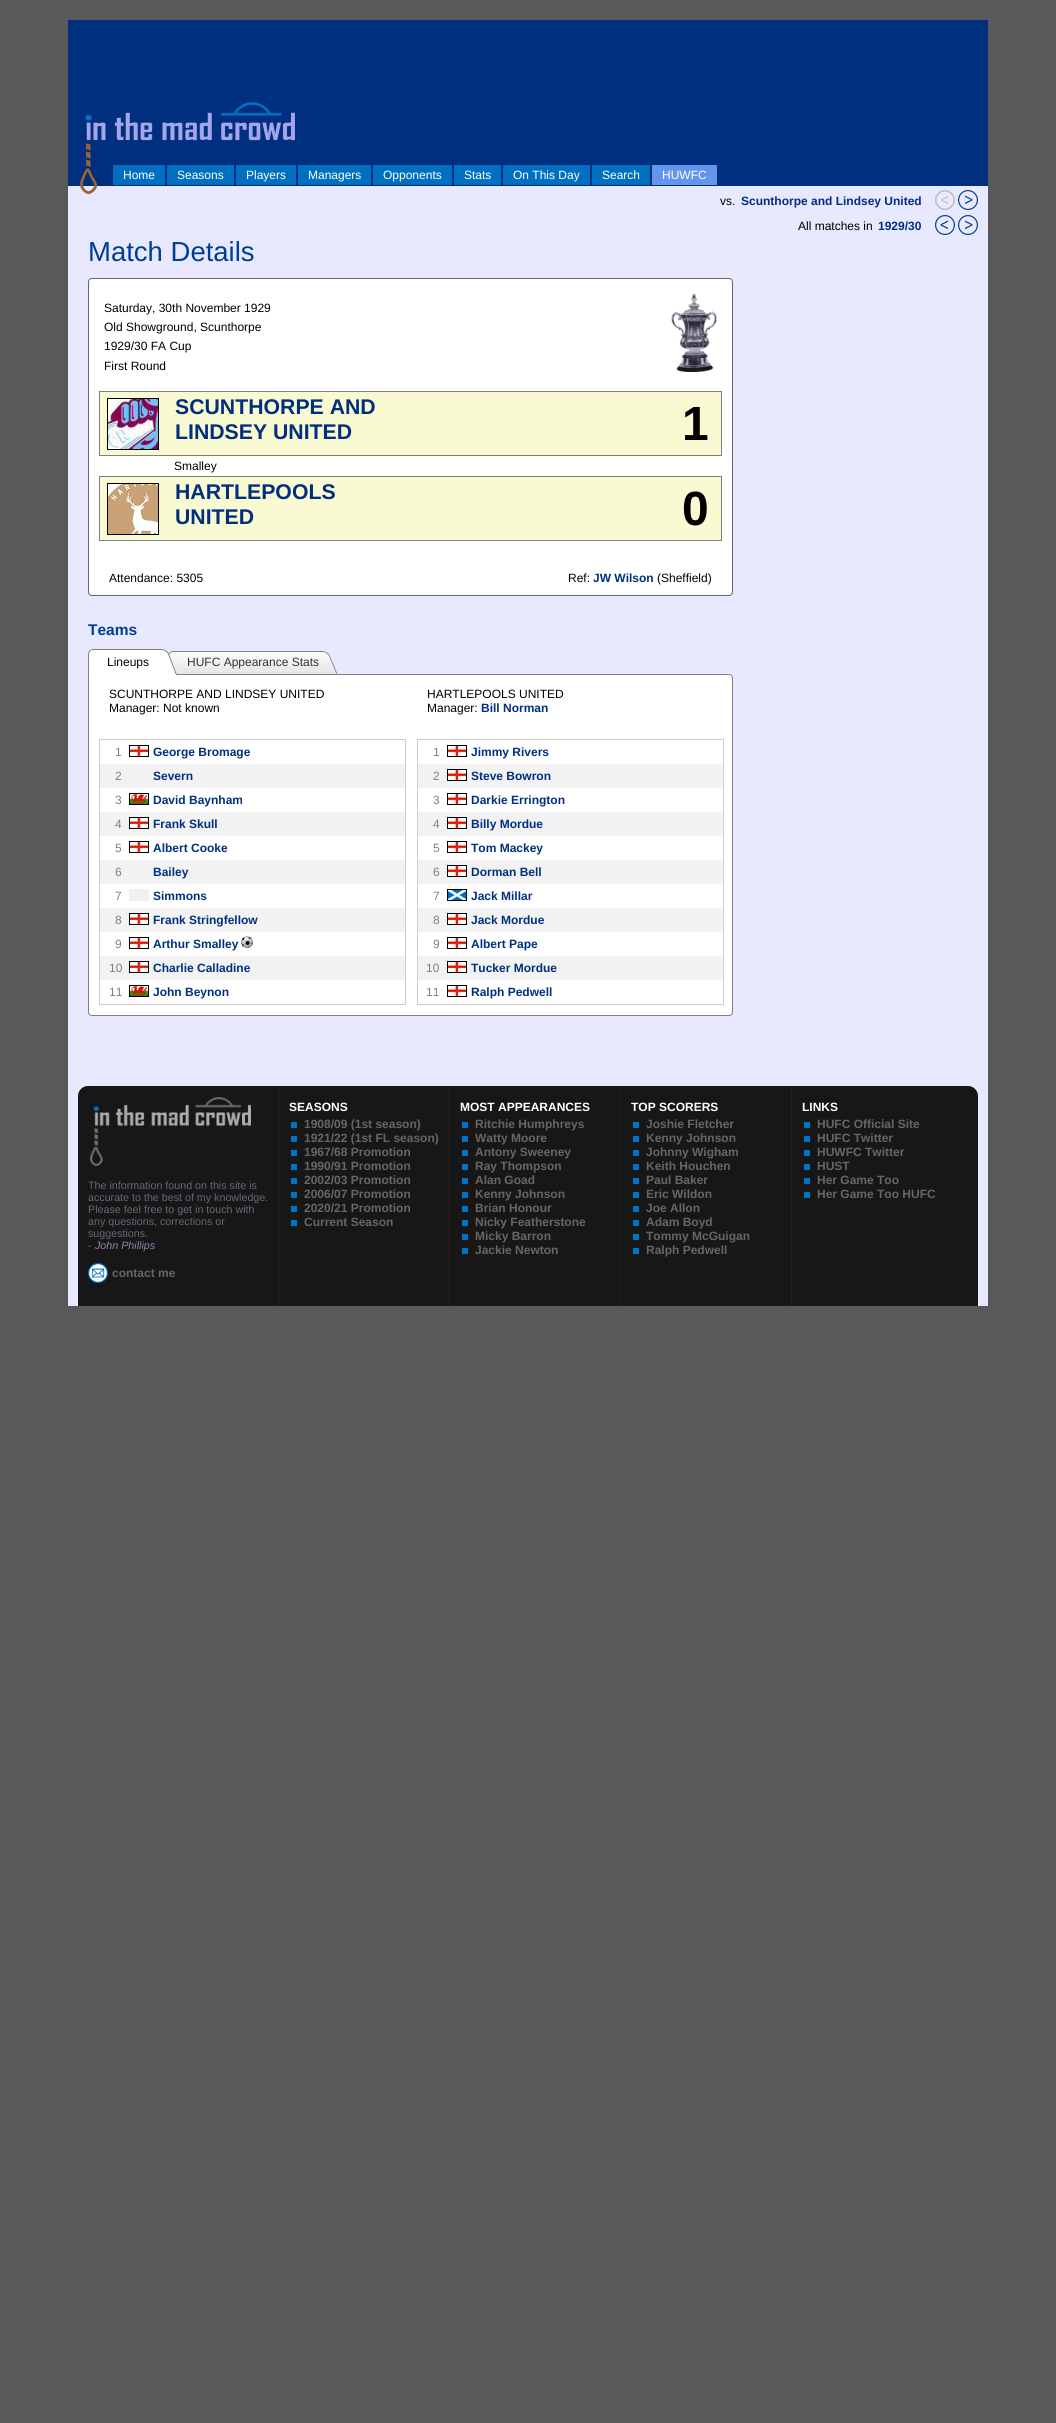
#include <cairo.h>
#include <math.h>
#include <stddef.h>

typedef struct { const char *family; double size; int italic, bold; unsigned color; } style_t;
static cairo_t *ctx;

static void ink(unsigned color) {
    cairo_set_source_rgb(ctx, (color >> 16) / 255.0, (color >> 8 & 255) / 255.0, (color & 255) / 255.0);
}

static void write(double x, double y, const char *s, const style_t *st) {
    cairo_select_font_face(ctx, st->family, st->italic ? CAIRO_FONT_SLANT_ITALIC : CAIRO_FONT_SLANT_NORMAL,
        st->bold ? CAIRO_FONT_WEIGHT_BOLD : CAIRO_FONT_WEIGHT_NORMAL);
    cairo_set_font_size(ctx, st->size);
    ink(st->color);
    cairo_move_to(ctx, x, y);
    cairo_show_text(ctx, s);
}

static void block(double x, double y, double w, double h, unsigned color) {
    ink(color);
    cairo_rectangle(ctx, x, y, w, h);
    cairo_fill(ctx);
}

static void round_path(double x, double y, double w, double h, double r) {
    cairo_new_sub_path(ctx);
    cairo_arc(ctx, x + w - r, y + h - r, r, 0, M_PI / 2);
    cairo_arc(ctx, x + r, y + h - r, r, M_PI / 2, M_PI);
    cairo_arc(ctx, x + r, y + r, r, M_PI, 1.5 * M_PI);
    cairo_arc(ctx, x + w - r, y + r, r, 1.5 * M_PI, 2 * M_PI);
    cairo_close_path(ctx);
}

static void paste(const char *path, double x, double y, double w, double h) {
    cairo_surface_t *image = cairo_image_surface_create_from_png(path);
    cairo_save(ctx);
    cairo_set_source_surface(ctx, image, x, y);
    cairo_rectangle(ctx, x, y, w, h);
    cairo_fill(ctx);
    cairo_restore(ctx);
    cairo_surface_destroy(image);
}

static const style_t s1 = {"Liberation Sans", 12, 0, 0, 0xffffff};
static const style_t s2 = {"Liberation Sans", 12, 0, 0, 0x000000};
static const style_t s3 = {"Liberation Sans", 12, 0, 1, 0x002f7f};
static const style_t s4 = {"Liberation Sans", 27.5, 0, 0, 0x003f8f};
static const style_t s5 = {"Liberation Sans", 21.25, 0, 1, 0x002f7f};
static const style_t s6 = {"Liberation Sans", 48, 0, 1, 0x000000};
static const style_t s7 = {"Liberation Sans", 15.5, 0, 1, 0x003f8f};
static const style_t s8 = {"Liberation Sans", 12, 0, 0, 0x333333};
static const style_t s9 = {"Liberation Sans", 12, 0, 0, 0x808080};
static const style_t s10 = {"Liberation Sans", 12, 0, 1, 0xffffff};
static const style_t s11 = {"Liberation Sans", 12, 0, 1, 0x666666};
static const style_t s12 = {"Liberation Sans", 10.7, 0, 0, 0x666677};
static const style_t s13 = {"Liberation Sans", 10.7, 1, 0, 0x8888aa};

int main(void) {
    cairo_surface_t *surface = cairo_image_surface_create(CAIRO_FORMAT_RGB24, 1056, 2423);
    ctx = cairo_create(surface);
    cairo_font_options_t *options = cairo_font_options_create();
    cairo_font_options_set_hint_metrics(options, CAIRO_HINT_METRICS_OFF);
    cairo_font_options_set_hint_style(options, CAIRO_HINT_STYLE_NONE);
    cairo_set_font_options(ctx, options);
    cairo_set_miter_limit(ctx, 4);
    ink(0x595959);
    cairo_paint(ctx);
    block(68, 186, 920, 1120, 0xe8e8ff);
    block(68, 20, 920, 166, 0x002f7f);
    paste("pic1.png", 80, 102, 215, 92);
    block(113, 165, 52, 20, 0x006fbf);
    write(123, 179, "Home", &s1);
    block(167, 165, 67, 20, 0x006fbf);
    write(177, 179, "Seasons", &s1);
    block(236, 165, 60, 20, 0x006fbf);
    write(246, 179, "Players", &s1);
    block(298, 165, 73, 20, 0x006fbf);
    write(308, 179, "Managers", &s1);
    block(373, 165, 79, 20, 0x006fbf);
    write(383, 179, "Opponents", &s1);
    block(454, 165, 47, 20, 0x006fbf);
    write(464, 179, "Stats", &s1);
    block(503, 165, 87, 20, 0x006fbf);
    write(513, 179, "On This Day", &s1);
    block(592, 165, 58, 20, 0x006fbf);
    write(602, 179, "Search", &s1);
    block(652, 165, 65, 20, 0x6495ed);
    write(662, 179, "HUWFC", &s1);
    write(720, 205, "vs.", &s2);
    write(741, 205, "Scunthorpe and Lindsey United", &s3);
    paste("pic2.png", 935, 190, 20, 20);
    paste("pic3.png", 958, 190, 20, 20);
    write(798, 230, "All matches in", &s2);
    write(878, 230, "1929/30", &s3);
    paste("pic4.png", 935, 215, 20, 20);
    paste("pic3.png", 958, 215, 20, 20);
    write(88, 261, "Match Details", &s4);
    ink(0xffffff);
    round_path(88.5, 278.5, 644, 317, 3.5);
    cairo_fill_preserve(ctx);
    ink(0x666666);
    cairo_set_line_width(ctx, 1);
    cairo_stroke(ctx);
    write(104, 312, "Saturday, 30th November 1929", &s2);
    write(104, 331, "Old Showground, Scunthorpe", &s2);
    write(104, 350, "1929/30 FA Cup", &s2);
    write(104, 370, "First Round", &s2);
    paste("pic5.png", 671, 294, 46, 78);
    ink(0xfafad2);
    cairo_rectangle(ctx, 99.5, 391.5, 622, 64);
    cairo_fill_preserve(ctx);
    ink(0x7f7f7f);
    cairo_stroke(ctx);
    cairo_rectangle(ctx, 107.5, 398.5, 51, 51);
    ink(0x000000);
    cairo_stroke(ctx);
    paste("pic6.png", 108, 399, 50, 50);
    write(175, 414, "SCUNTHORPE AND", &s5);
    write(175, 439, "LINDSEY UNITED", &s5);
    write(682, 440, "1", &s6);
    write(174, 470, "Smalley", &s2);
    ink(0xfafad2);
    cairo_rectangle(ctx, 99.5, 476.5, 622, 64);
    cairo_fill_preserve(ctx);
    ink(0x7f7f7f);
    cairo_stroke(ctx);
    cairo_rectangle(ctx, 107.5, 483.5, 51, 51);
    ink(0x000000);
    cairo_stroke(ctx);
    paste("pic7.png", 108, 484, 50, 50);
    write(175, 499, "HARTLEPOOLS", &s5);
    write(175, 524, "UNITED", &s5);
    write(682, 525, "0", &s6);
    write(109, 582, "Attendance: 5305", &s2);
    write(568, 582, "Ref:", &s2);
    write(593, 582, "JW Wilson", &s3);
    write(657, 582, "(Sheffield)", &s2);
    write(88, 635, "Teams", &s7);
    ink(0xffffff);
    cairo_new_path(ctx);
    cairo_move_to(ctx, 88.5, 674.5);
    cairo_line_to(ctx, 729, 674.5);
    cairo_curve_to(ctx, 731, 674.5, 732.5, 676, 732.5, 678);
    cairo_line_to(ctx, 732.5, 1012);
    cairo_curve_to(ctx, 732.5, 1014, 731, 1015.5, 729, 1015.5);
    cairo_line_to(ctx, 92, 1015.5);
    cairo_curve_to(ctx, 90, 1015.5, 88.5, 1014, 88.5, 1012);
    cairo_close_path(ctx);
    cairo_fill_preserve(ctx);
    ink(0x808080);
    cairo_stroke(ctx);
    paste("pic8.png", 88, 649, 9, 26);
    paste("pic9.png", 97, 649, 71, 26);
    write(107, 666, "Lineups", &s2);
    paste("pic10.png", 168, 651, 9, 24);
    paste("pic11.png", 177, 651, 161, 23);
    write(187, 666, "HUFC Appearance Stats", &s8);
    write(109, 698, "SCUNTHORPE AND LINDSEY UNITED", &s2);
    write(109, 712, "Manager: Not known", &s2);
    cairo_rectangle(ctx, 99.5, 739.5, 306, 265);
    ink(0xcccccc);
    cairo_stroke(ctx);
    write(115, 756, "1", &s9);
    paste("pic12.png", 129, 745, 20, 12);
    write(153, 756, "George Bromage", &s3);
    block(100, 764, 305, 24, 0xf2f2f2);
    write(115, 780, "2", &s9);
    write(153, 780, "Severn", &s3);
    write(115, 804, "3", &s9);
    paste("pic13.png", 129, 793, 20, 12);
    write(153, 804, "David Baynham", &s3);
    block(100, 812, 305, 24, 0xf2f2f2);
    write(115, 828, "4", &s9);
    paste("pic12.png", 129, 817, 20, 12);
    write(153, 828, "Frank Skull", &s3);
    write(115, 852, "5", &s9);
    paste("pic12.png", 129, 841, 20, 12);
    write(153, 852, "Albert Cooke", &s3);
    block(100, 860, 305, 24, 0xf2f2f2);
    write(115, 876, "6", &s9);
    write(153, 876, "Bailey", &s3);
    write(115, 900, "7", &s9);
    block(129, 889, 20, 12, 0xf0f0f0);
    write(153, 900, "Simmons", &s3);
    block(100, 908, 305, 24, 0xf2f2f2);
    write(115, 924, "8", &s9);
    paste("pic12.png", 129, 913, 20, 12);
    write(153, 924, "Frank Stringfellow", &s3);
    write(115, 948, "9", &s9);
    paste("pic12.png", 129, 937, 20, 12);
    write(153, 948, "Arthur Smalley", &s3);
    paste("pic14.png", 241, 936, 12, 12);
    block(100, 956, 305, 24, 0xf2f2f2);
    write(109, 972, "10", &s9);
    paste("pic12.png", 129, 961, 20, 12);
    write(153, 972, "Charlie Calladine", &s3);
    write(109, 996, "11", &s9);
    paste("pic13.png", 129, 985, 20, 12);
    write(153, 996, "John Beynon", &s3);
    write(427, 698, "HARTLEPOOLS UNITED", &s2);
    write(427, 712, "Manager:", &s2);
    write(481, 712, "Bill Norman", &s3);
    cairo_rectangle(ctx, 417.5, 739.5, 306, 265);
    ink(0xcccccc);
    cairo_stroke(ctx);
    write(433, 756, "1", &s9);
    paste("pic12.png", 447, 745, 20, 12);
    write(471, 756, "Jimmy Rivers", &s3);
    block(418, 764, 305, 24, 0xf2f2f2);
    write(433, 780, "2", &s9);
    paste("pic12.png", 447, 769, 20, 12);
    write(471, 780, "Steve Bowron", &s3);
    write(433, 804, "3", &s9);
    paste("pic12.png", 447, 793, 20, 12);
    write(471, 804, "Darkie Errington", &s3);
    block(418, 812, 305, 24, 0xf2f2f2);
    write(433, 828, "4", &s9);
    paste("pic12.png", 447, 817, 20, 12);
    write(471, 828, "Billy Mordue", &s3);
    write(433, 852, "5", &s9);
    paste("pic12.png", 447, 841, 20, 12);
    write(471, 852, "Tom Mackey", &s3);
    block(418, 860, 305, 24, 0xf2f2f2);
    write(433, 876, "6", &s9);
    paste("pic12.png", 447, 865, 20, 12);
    write(471, 876, "Dorman Bell", &s3);
    write(433, 900, "7", &s9);
    paste("pic15.png", 447, 889, 20, 12);
    write(471, 900, "Jack Millar", &s3);
    block(418, 908, 305, 24, 0xf2f2f2);
    write(433, 924, "8", &s9);
    paste("pic12.png", 447, 913, 20, 12);
    write(471, 924, "Jack Mordue", &s3);
    write(433, 948, "9", &s9);
    paste("pic12.png", 447, 937, 20, 12);
    write(471, 948, "Albert Pape", &s3);
    block(418, 956, 305, 24, 0xf2f2f2);
    write(426, 972, "10", &s9);
    paste("pic12.png", 447, 961, 20, 12);
    write(471, 972, "Tucker Mordue", &s3);
    write(426, 996, "11", &s9);
    paste("pic12.png", 447, 985, 20, 12);
    write(471, 996, "Ralph Pedwell", &s3);
    ink(0x171717);
    cairo_new_path(ctx);
    cairo_move_to(ctx, 88, 1086);
    cairo_line_to(ctx, 968, 1086);
    cairo_curve_to(ctx, 973.5, 1086, 978, 1090.5, 978, 1096);
    cairo_line_to(ctx, 978, 1306);
    cairo_line_to(ctx, 78, 1306);
    cairo_line_to(ctx, 78, 1096);
    cairo_curve_to(ctx, 78, 1090.5, 82.5, 1086, 88, 1086);
    cairo_close_path(ctx);
    cairo_fill(ctx);
    block(449, 1086, 1, 220, 0x222222);
    write(289, 1111, "SEASONS", &s10);
    block(291, 1122, 6, 6, 0x0073c6);
    write(304, 1128, "1908/09 (1st season)", &s11);
    block(291, 1136, 6, 6, 0x0073c6);
    write(304, 1142, "1921/22 (1st FL season)", &s11);
    block(291, 1150, 6, 6, 0x0073c6);
    write(304, 1156, "1967/68 Promotion", &s11);
    block(291, 1164, 6, 6, 0x0073c6);
    write(304, 1170, "1990/91 Promotion", &s11);
    block(291, 1178, 6, 6, 0x0073c6);
    write(304, 1184, "2002/03 Promotion", &s11);
    block(291, 1192, 6, 6, 0x0073c6);
    write(304, 1198, "2006/07 Promotion", &s11);
    block(291, 1206, 6, 6, 0x0073c6);
    write(304, 1212, "2020/21 Promotion", &s11);
    block(291, 1220, 6, 6, 0x0073c6);
    write(304, 1226, "Current Season", &s11);
    block(620, 1086, 1, 220, 0x222222);
    write(460, 1111, "MOST APPEARANCES", &s10);
    block(462, 1122, 6, 6, 0x0073c6);
    write(475, 1128, "Ritchie Humphreys", &s11);
    block(462, 1136, 6, 6, 0x0073c6);
    write(475, 1142, "Watty Moore", &s11);
    block(462, 1150, 6, 6, 0x0073c6);
    write(475, 1156, "Antony Sweeney", &s11);
    block(462, 1164, 6, 6, 0x0073c6);
    write(475, 1170, "Ray Thompson", &s11);
    block(462, 1178, 6, 6, 0x0073c6);
    write(475, 1184, "Alan Goad", &s11);
    block(462, 1192, 6, 6, 0x0073c6);
    write(475, 1198, "Kenny Johnson", &s11);
    block(462, 1206, 6, 6, 0x0073c6);
    write(475, 1212, "Brian Honour", &s11);
    block(462, 1220, 6, 6, 0x0073c6);
    write(475, 1226, "Nicky Featherstone", &s11);
    block(462, 1234, 6, 6, 0x0073c6);
    write(475, 1240, "Micky Barron", &s11);
    block(462, 1248, 6, 6, 0x0073c6);
    write(475, 1254, "Jackie Newton", &s11);
    block(791, 1086, 1, 220, 0x222222);
    write(631, 1111, "TOP SCORERS", &s10);
    block(633, 1122, 6, 6, 0x0073c6);
    write(646, 1128, "Joshie Fletcher", &s11);
    block(633, 1136, 6, 6, 0x0073c6);
    write(646, 1142, "Kenny Johnson", &s11);
    block(633, 1150, 6, 6, 0x0073c6);
    write(646, 1156, "Johnny Wigham", &s11);
    block(633, 1164, 6, 6, 0x0073c6);
    write(646, 1170, "Keith Houchen", &s11);
    block(633, 1178, 6, 6, 0x0073c6);
    write(646, 1184, "Paul Baker", &s11);
    block(633, 1192, 6, 6, 0x0073c6);
    write(646, 1198, "Eric Wildon", &s11);
    block(633, 1206, 6, 6, 0x0073c6);
    write(646, 1212, "Joe Allon", &s11);
    block(633, 1220, 6, 6, 0x0073c6);
    write(646, 1226, "Adam Boyd", &s11);
    block(633, 1234, 6, 6, 0x0073c6);
    write(646, 1240, "Tommy McGuigan", &s11);
    block(633, 1248, 6, 6, 0x0073c6);
    write(646, 1254, "Ralph Pedwell", &s11);
    write(802, 1111, "LINKS", &s10);
    block(804, 1122, 6, 6, 0x0073c6);
    write(817, 1128, "HUFC Official Site", &s11);
    block(804, 1136, 6, 6, 0x0073c6);
    write(817, 1142, "HUFC Twitter", &s11);
    block(804, 1150, 6, 6, 0x0073c6);
    write(817, 1156, "HUWFC Twitter", &s11);
    block(804, 1164, 6, 6, 0x0073c6);
    write(817, 1170, "HUST", &s11);
    block(804, 1178, 6, 6, 0x0073c6);
    write(817, 1184, "Her Game Too", &s11);
    block(804, 1192, 6, 6, 0x0073c6);
    write(817, 1198, "Her Game Too HUFC", &s11);
    block(278, 1086, 1, 220, 0x222222);
    paste("pic16.png", 90, 1097, 161, 69);
    write(88, 1189, "The information found on this site is", &s12);
    write(88, 1201, "accurate to the best of my knowledge.", &s12);
    write(88, 1213, "Please feel free to get in touch with", &s12);
    write(88, 1225, "any questions, corrections or", &s12);
    write(88, 1237, "suggestions.", &s12);
    write(88, 1249, "-", &s12);
    write(95, 1249, "John Phillips", &s13);
    paste("pic17.png", 88, 1263, 20, 20);
    write(112, 1277, "contact me", &s11);
    cairo_surface_write_to_png(surface, "screenshot.png");
    cairo_font_options_destroy(options);
    cairo_destroy(ctx);
    cairo_surface_destroy(surface);
    return 0;
}
